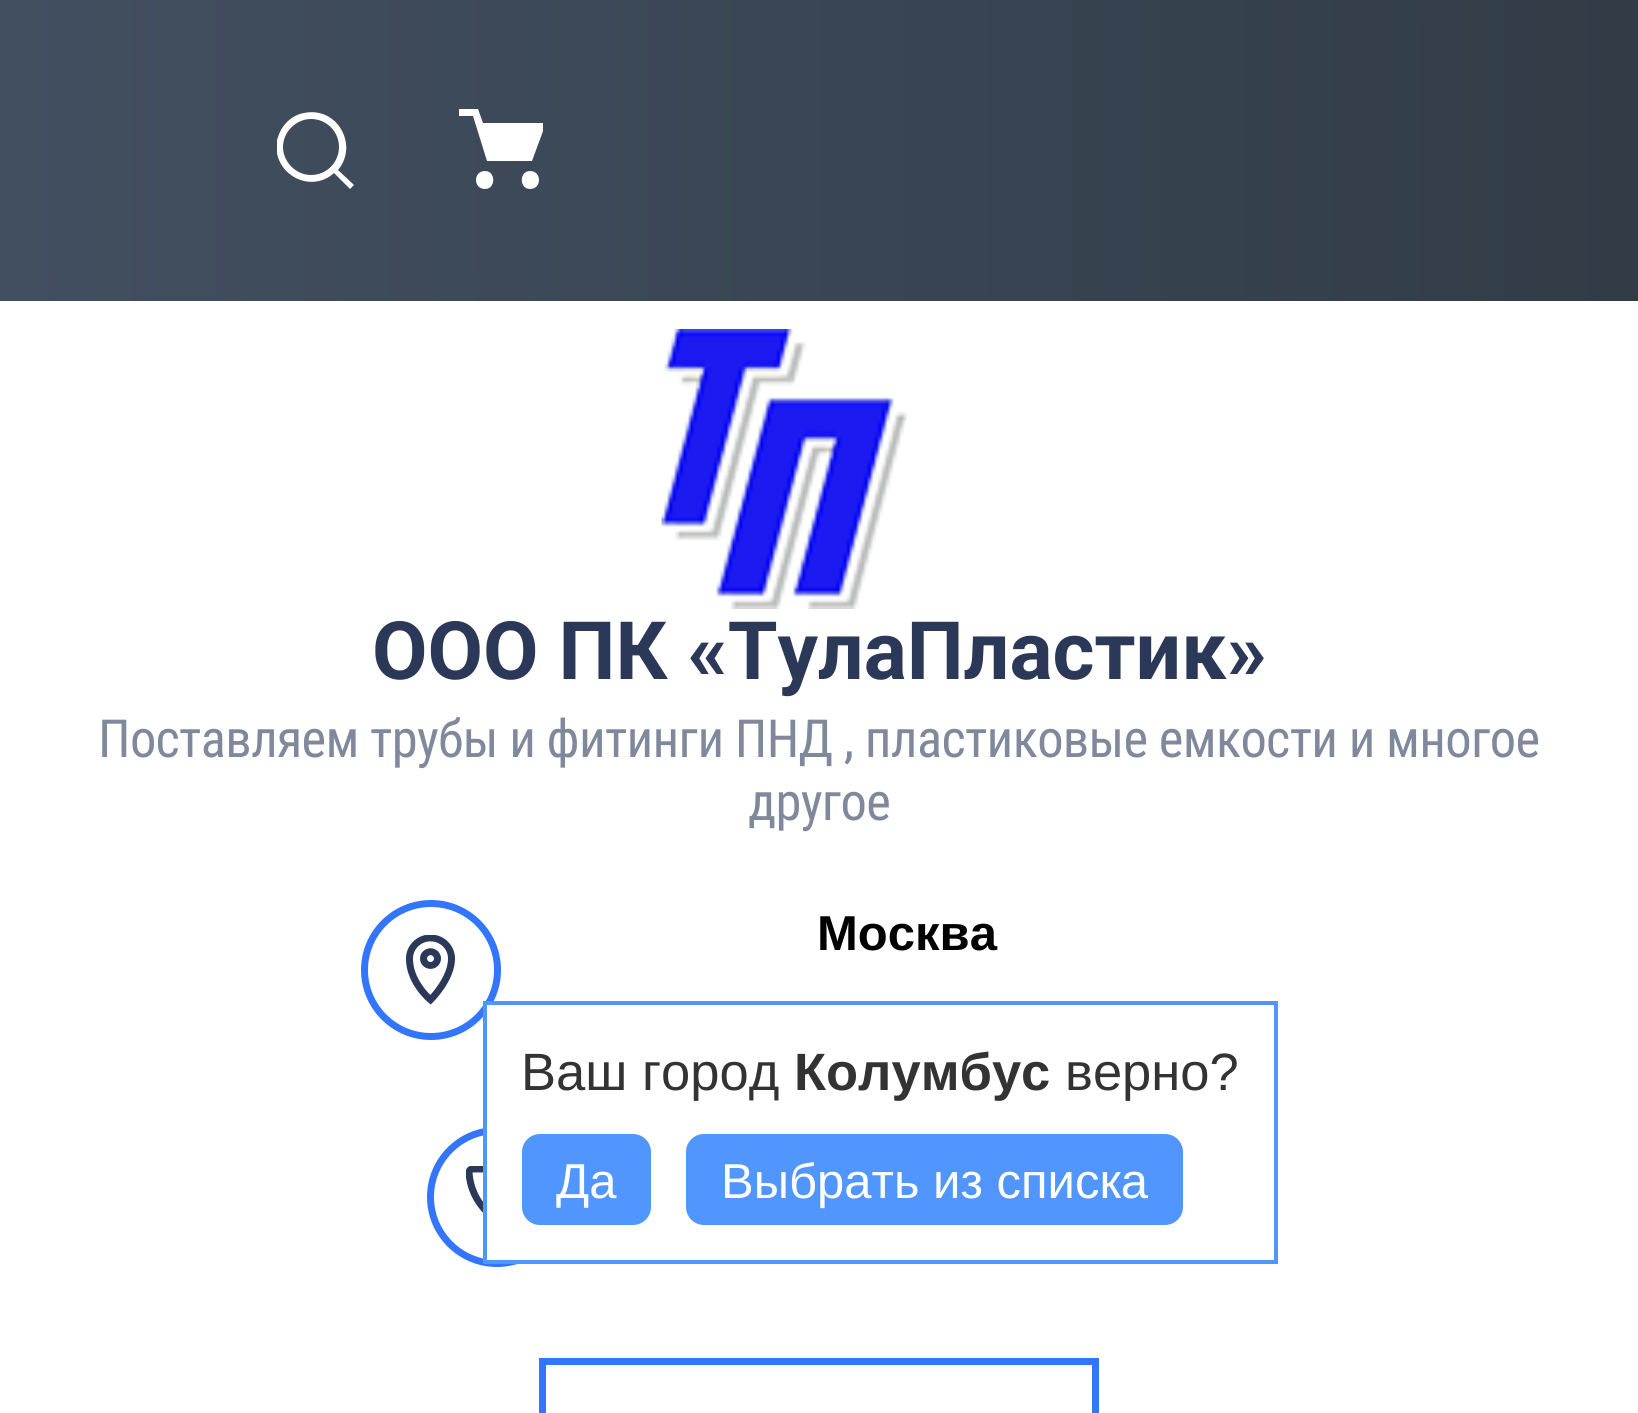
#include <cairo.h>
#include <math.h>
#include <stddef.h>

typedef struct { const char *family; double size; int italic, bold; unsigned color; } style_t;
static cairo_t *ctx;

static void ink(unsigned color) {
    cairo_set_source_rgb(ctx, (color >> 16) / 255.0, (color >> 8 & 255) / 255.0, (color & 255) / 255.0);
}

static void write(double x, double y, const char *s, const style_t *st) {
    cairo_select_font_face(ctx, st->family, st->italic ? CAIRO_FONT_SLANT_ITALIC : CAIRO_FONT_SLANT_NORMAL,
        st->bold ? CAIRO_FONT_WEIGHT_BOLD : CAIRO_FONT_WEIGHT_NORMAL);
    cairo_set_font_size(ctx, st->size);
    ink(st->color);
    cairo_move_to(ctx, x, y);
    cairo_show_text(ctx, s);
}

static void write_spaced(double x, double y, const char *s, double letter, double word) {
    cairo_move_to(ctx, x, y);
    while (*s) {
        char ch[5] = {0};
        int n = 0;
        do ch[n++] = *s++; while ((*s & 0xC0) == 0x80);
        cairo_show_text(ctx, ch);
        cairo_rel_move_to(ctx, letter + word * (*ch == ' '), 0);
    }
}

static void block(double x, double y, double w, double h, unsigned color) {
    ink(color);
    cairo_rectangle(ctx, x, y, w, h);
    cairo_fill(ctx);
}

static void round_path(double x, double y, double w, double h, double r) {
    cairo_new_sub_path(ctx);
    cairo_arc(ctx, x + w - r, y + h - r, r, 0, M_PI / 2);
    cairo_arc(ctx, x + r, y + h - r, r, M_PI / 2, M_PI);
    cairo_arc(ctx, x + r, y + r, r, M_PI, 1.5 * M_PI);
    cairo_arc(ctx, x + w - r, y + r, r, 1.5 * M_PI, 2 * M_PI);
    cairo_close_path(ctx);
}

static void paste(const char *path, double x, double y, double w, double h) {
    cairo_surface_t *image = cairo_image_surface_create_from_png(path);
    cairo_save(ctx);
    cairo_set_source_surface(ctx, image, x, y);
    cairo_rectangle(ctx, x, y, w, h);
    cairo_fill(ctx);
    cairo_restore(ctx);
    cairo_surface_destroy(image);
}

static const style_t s1 = {"Roboto", 80.5, 0, 1, 0x2b3858};
static const style_t s2 = {"Liberation Sans", 49, 0, 1, 0x000000};
static const style_t s3 = {"Liberation Sans", 52.5, 0, 0, 0x333333};
static const style_t s4 = {"Liberation Sans", 52.5, 0, 1, 0x333333};
static const style_t s5 = {"Liberation Sans", 49, 0, 0, 0xffffff};

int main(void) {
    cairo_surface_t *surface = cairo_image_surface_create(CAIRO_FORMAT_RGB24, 1638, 1413);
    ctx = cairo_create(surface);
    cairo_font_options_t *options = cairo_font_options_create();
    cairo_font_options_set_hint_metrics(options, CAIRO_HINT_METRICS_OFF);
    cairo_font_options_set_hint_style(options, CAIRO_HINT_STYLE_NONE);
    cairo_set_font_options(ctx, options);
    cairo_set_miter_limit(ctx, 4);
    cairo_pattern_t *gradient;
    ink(0xffffff);
    cairo_paint(ctx);
    gradient = cairo_pattern_create_linear(0, 151, 1638, 150);
    cairo_pattern_add_color_stop_rgba(gradient, 0, 0.259, 0.31, 0.376, 1);
    cairo_pattern_add_color_stop_rgba(gradient, 1, 0.192, 0.235, 0.278, 1);
    cairo_set_source(ctx, gradient);
    cairo_pattern_destroy(gradient);
    cairo_rectangle(ctx, 0, 0, 1638, 301);
    cairo_fill(ctx);
    cairo_save(ctx);
    cairo_rectangle(ctx, 277, 112, 77, 77);
    cairo_clip(ctx);
    ink(0xffffff);
    cairo_set_fill_rule(ctx, CAIRO_FILL_RULE_EVEN_ODD);
    cairo_new_path(ctx);
    cairo_move_to(ctx, 338, 170);
    cairo_line_to(ctx, 354, 185);
    cairo_line_to(ctx, 350, 189);
    cairo_line_to(ctx, 334, 173);
    cairo_curve_to(ctx, 310, 195, 271, 173, 277, 140);
    cairo_curve_to(ctx, 279, 133, 282, 127, 287, 122);
    cairo_curve_to(ctx, 292, 117, 298, 114, 304, 113);
    cairo_curve_to(ctx, 337, 106, 359, 145, 338, 170);
    cairo_close_path(ctx);
    cairo_move_to(ctx, 311, 175);
    cairo_curve_to(ctx, 327, 175, 339, 162, 339, 147);
    cairo_curve_to(ctx, 339, 132, 327, 119, 311, 119);
    cairo_curve_to(ctx, 296, 119, 283, 132, 283, 147);
    cairo_curve_to(ctx, 283, 162, 296, 175, 311, 175);
    cairo_close_path(ctx);
    cairo_fill(ctx);
    cairo_restore(ctx);
    cairo_save(ctx);
    cairo_rectangle(ctx, 459, 109, 84, 80);
    cairo_clip(ctx);
    ink(0xffffff);
    cairo_set_fill_rule(ctx, CAIRO_FILL_RULE_EVEN_ODD);
    cairo_new_path(ctx);
    cairo_move_to(ctx, 483, 123);
    cairo_line_to(ctx, 546, 123);
    cairo_line_to(ctx, 532, 161);
    cairo_line_to(ctx, 487, 161);
    cairo_line_to(ctx, 473, 116);
    cairo_line_to(ctx, 459, 116);
    cairo_line_to(ctx, 459, 109);
    cairo_line_to(ctx, 478, 109);
    cairo_close_path(ctx);
    cairo_move_to(ctx, 485, 189);
    cairo_curve_to(ctx, 473, 189, 473, 171, 485, 171);
    cairo_curve_to(ctx, 496, 171, 496, 189, 485, 189);
    cairo_close_path(ctx);
    cairo_move_to(ctx, 530, 189);
    cairo_curve_to(ctx, 519, 189, 519, 171, 530, 171);
    cairo_curve_to(ctx, 542, 171, 542, 189, 530, 189);
    cairo_close_path(ctx);
    cairo_fill(ctx);
    cairo_restore(ctx);
    paste("pic1.png", 661, 329, 246, 280);
    write(372, 679, "ООО ПК «ТулаПластик»", &s1);
    cairo_select_font_face(ctx, "Roboto Condensed", CAIRO_FONT_SLANT_NORMAL, CAIRO_FONT_WEIGHT_NORMAL);
    cairo_set_font_size(ctx, 52.5);
    ink(0x80889b);
    write_spaced(98, 757, "Поставляем трубы и фитинги ПНД , пластиковые емкости и многое", -0.7, 0);
    write_spaced(748, 820, "другое", -0.7, 0);
    paste("pic2.png", 466, 1166, 17, 47);
    cairo_arc(ctx, 497, 1197, 66.5, 0, 2 * M_PI);
    ink(0x3375fc);
    cairo_set_line_width(ctx, 7);
    cairo_stroke(ctx);
    paste("pic3.png", 406, 935, 49, 70);
    cairo_arc(ctx, 431, 970, 66.5, 0, 2 * M_PI);
    cairo_stroke(ctx);
    write(817, 950, "Москва", &s2);
    block(487, 1005, 80, 255, 0xffffff);
    cairo_rectangle(ctx, 485, 1003, 791, 259);
    ink(0x5196ff);
    cairo_set_line_width(ctx, 4);
    cairo_stroke(ctx);
    write(521, 1090, "Ваш город", &s3);
    write(794, 1090, "Колумбус", &s4);
    write(1065, 1090, "верно?", &s3);
    ink(0x5196ff);
    round_path(522, 1134, 129, 91, 18);
    cairo_fill(ctx);
    write(556, 1198, "Да", &s5);
    ink(0x5196ff);
    round_path(686, 1134, 497, 91, 18);
    cairo_fill(ctx);
    write(721, 1198, "Выбрать из списка", &s5);
    cairo_rectangle(ctx, 542.5, 1361.5, 553, 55);
    ink(0x3375fc);
    cairo_set_line_width(ctx, 7);
    cairo_stroke(ctx);
    cairo_surface_write_to_png(surface, "screenshot.png");
    cairo_font_options_destroy(options);
    cairo_destroy(ctx);
    cairo_surface_destroy(surface);
    return 0;
}
